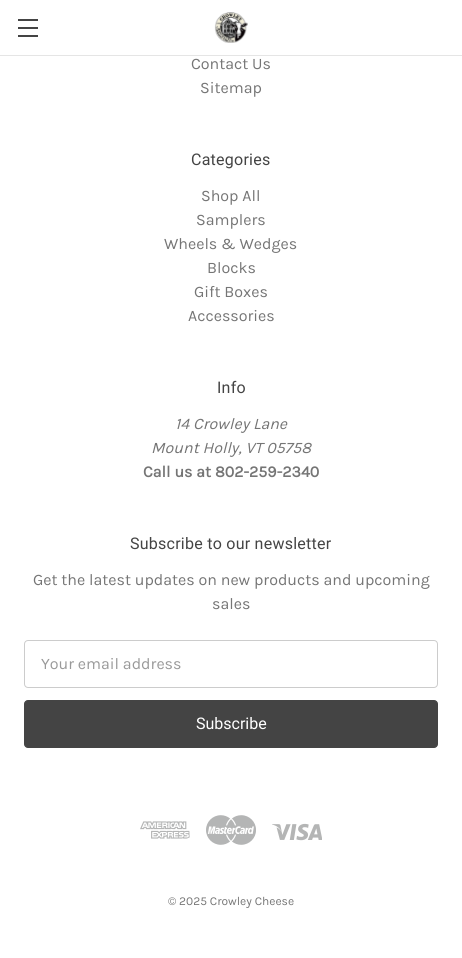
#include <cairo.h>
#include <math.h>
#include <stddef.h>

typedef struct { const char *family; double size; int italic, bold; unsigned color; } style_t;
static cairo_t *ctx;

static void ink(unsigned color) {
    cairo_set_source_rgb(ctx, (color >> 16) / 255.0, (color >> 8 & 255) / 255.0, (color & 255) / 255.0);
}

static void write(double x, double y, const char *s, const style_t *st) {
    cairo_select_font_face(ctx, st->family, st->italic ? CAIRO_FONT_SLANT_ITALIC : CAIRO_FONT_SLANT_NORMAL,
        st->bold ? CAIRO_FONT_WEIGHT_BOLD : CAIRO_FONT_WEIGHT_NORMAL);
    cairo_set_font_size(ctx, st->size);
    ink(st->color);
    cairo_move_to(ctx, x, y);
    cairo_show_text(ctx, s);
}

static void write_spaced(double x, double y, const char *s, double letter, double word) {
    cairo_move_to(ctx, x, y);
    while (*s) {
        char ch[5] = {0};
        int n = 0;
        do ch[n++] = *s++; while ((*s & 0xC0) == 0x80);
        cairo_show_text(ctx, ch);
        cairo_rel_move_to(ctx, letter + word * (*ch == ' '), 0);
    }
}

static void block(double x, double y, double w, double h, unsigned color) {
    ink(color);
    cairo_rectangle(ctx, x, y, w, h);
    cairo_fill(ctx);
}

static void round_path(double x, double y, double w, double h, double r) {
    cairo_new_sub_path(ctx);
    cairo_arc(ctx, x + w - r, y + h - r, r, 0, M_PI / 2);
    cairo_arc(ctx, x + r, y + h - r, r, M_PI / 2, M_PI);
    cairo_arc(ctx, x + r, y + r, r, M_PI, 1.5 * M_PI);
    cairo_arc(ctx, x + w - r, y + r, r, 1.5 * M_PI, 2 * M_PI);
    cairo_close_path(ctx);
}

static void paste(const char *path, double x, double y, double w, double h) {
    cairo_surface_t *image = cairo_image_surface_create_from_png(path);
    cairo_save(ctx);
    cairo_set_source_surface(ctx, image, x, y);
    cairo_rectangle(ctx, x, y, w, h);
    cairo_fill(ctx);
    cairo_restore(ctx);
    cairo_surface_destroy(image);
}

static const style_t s1 = {"Karla", 16, 0, 0, 0x757575};
static const style_t s2 = {"Karla", 16, 1, 0, 0x757575};
static const style_t s3 = {"Karla", 16, 0, 1, 0x757575};
static const style_t s4 = {"Karla", 16, 0, 0, 0x999999};
static const style_t s5 = {"Roboto", 16, 0, 0, 0xffffff};
static const style_t s6 = {"Karla", 12, 0, 0, 0x757575};

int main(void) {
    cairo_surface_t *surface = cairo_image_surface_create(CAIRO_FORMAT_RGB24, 462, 958);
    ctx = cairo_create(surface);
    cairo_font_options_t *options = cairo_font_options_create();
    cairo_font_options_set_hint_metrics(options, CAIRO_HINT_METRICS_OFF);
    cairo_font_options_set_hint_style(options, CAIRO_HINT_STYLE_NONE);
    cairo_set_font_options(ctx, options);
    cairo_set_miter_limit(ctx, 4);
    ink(0xffffff);
    cairo_paint(ctx);
    block(0, 55, 462, 1, 0xe5e5e5);
    block(18, 27, 20, 2, 0x444444);
    block(18, 19, 20, 2, 0x444444);
    block(18, 35, 20, 2, 0x444444);
    paste("pic1.png", 214, 12, 34, 31);
    write(191, 69, "Contact Us", &s1);
    write(200, 93, "Sitemap", &s1);
    cairo_select_font_face(ctx, "Roboto", CAIRO_FONT_SLANT_NORMAL, CAIRO_FONT_WEIGHT_NORMAL);
    ink(0x444444);
    write_spaced(191, 165, "Categories", 0.25, 0);
    write(201, 201, "Shop All", &s1);
    write(196, 225, "Samplers", &s1);
    write(164, 249, "Wheels & Wedges", &s1);
    write(207, 273, "Blocks", &s1);
    write(194, 297, "Gift Boxes", &s1);
    write(188, 321, "Accessories", &s1);
    cairo_select_font_face(ctx, "Roboto", CAIRO_FONT_SLANT_NORMAL, CAIRO_FONT_WEIGHT_NORMAL);
    ink(0x444444);
    write_spaced(217, 393, "Info", 0.25, 0);
    write(175, 429, "14 Crowley Lane", &s2);
    write(151, 453, "Mount Holly, VT 05758", &s2);
    write(143, 477, "Call us at 802-259-2340", &s3);
    cairo_select_font_face(ctx, "Roboto", CAIRO_FONT_SLANT_NORMAL, CAIRO_FONT_WEIGHT_NORMAL);
    ink(0x444444);
    write_spaced(130, 549, "Subscribe to our newsletter", 0.25, 0);
    write(33, 585, "Get the latest updates on new products and upcoming", &s1);
    write(212, 609, "sales", &s1);
    round_path(24.5, 640.5, 413, 47, 3.5);
    ink(0xcccccc);
    cairo_set_line_width(ctx, 1);
    cairo_stroke(ctx);
    write(41, 669, "Your email address", &s4);
    ink(0x444444);
    round_path(24.5, 700.5, 413, 47, 3.5);
    cairo_fill_preserve(ctx);
    cairo_stroke(ctx);
    write(196, 729, "Subscribe", &s5);
    paste("pic2.png", 140, 821, 50, 18);
    paste("pic3.png", 206, 815, 50, 30);
    paste("pic4.png", 272, 823, 50, 18);
    write(168, 905, "© 2025 Crowley Cheese", &s6);
    cairo_surface_write_to_png(surface, "screenshot.png");
    cairo_font_options_destroy(options);
    cairo_destroy(ctx);
    cairo_surface_destroy(surface);
    return 0;
}
